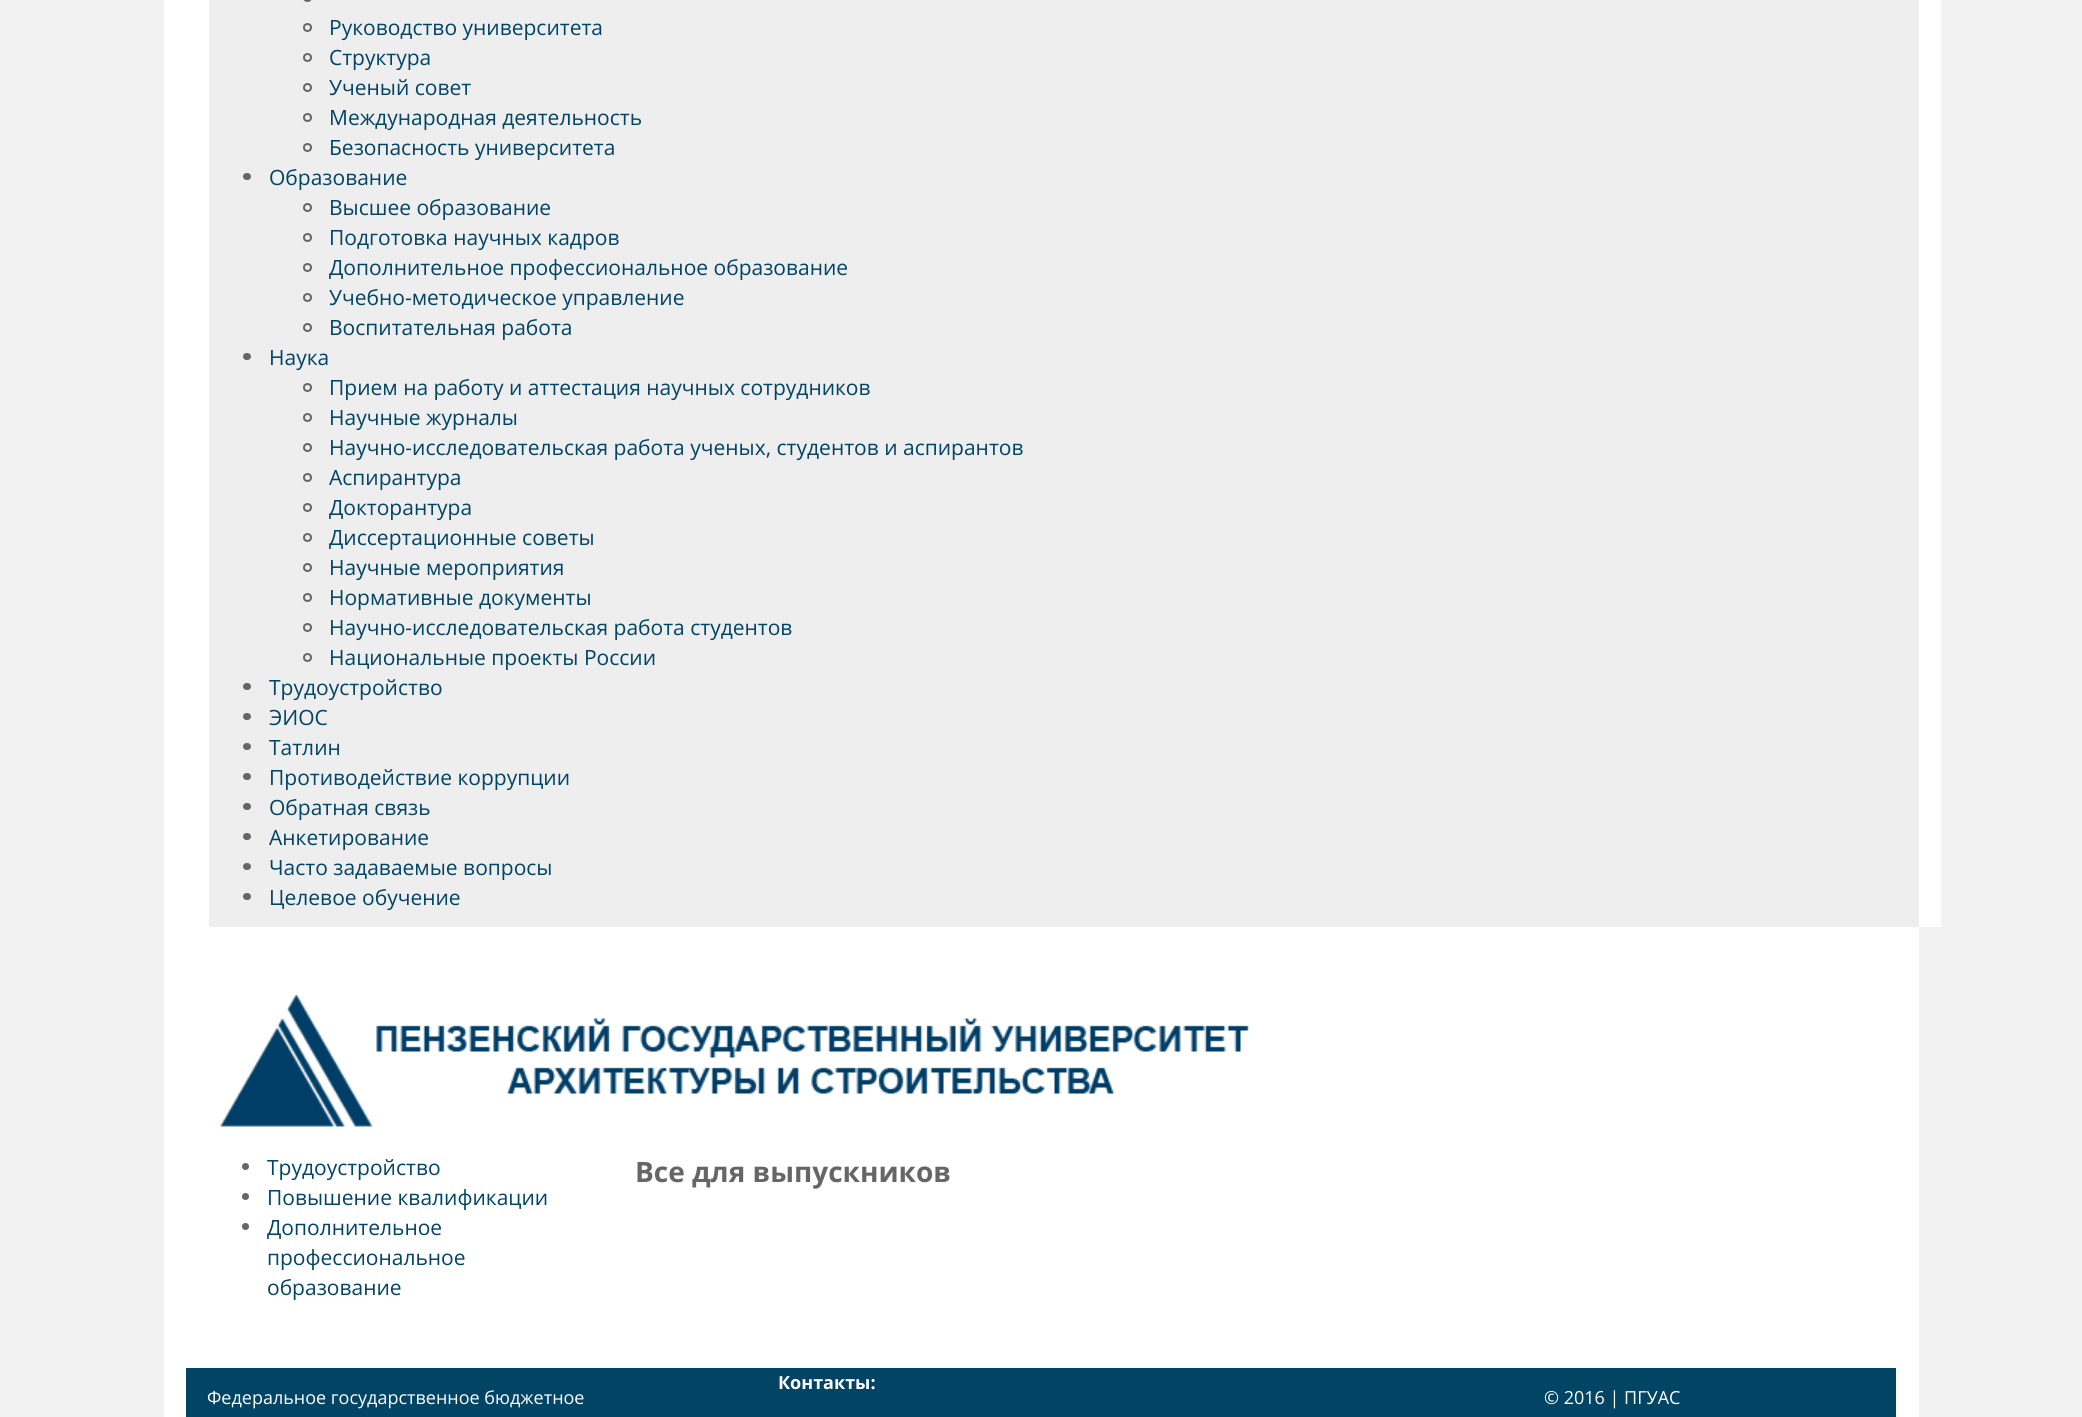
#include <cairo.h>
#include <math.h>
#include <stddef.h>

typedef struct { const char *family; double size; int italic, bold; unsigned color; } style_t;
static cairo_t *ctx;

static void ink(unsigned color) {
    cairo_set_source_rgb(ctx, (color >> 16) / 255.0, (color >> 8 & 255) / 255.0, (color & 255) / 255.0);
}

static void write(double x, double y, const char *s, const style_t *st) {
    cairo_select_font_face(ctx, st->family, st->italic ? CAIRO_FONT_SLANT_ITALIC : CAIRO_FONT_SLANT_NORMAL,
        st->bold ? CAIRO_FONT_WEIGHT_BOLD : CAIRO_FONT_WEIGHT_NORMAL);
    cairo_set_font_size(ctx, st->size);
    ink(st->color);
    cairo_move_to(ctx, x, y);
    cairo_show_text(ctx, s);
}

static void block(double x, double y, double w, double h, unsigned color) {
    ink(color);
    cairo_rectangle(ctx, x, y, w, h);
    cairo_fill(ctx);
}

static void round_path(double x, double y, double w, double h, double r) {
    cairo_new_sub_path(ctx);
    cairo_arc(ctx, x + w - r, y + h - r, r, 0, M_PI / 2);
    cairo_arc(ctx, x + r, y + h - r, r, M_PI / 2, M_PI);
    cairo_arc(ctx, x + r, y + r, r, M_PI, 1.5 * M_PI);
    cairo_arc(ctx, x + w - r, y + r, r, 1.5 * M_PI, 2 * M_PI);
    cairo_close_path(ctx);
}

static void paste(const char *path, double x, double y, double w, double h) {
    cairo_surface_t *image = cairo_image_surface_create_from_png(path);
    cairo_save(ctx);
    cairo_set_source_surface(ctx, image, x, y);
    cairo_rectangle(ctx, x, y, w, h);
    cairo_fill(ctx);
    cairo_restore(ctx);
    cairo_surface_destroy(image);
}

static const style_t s1 = {"Open Sans", 21, 0, 0, 0x014464};
static const style_t s2 = {"Open Sans", 28, 0, 1, 0x666666};
static const style_t s3 = {"Open Sans", 18, 0, 1, 0xffffff};
static const style_t s4 = {"Open Sans", 18, 0, 0, 0xffffff};

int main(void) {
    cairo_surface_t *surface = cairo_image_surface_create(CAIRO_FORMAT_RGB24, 2082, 1417);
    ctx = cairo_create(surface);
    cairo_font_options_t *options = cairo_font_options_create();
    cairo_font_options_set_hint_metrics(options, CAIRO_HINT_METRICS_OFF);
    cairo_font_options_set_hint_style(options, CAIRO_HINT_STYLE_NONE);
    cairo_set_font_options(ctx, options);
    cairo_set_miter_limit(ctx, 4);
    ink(0xf2f2f2);
    cairo_paint(ctx);
    block(164, 0, 1755, 1417, 0xffffff);
    block(1919, 0, 22, 927, 0xffffff);
    block(209, 0, 1710, 927, 0xeeeeee);
    cairo_arc(ctx, 307.5, -2.5, 3.5, 0, 2 * M_PI);
    ink(0x666666);
    cairo_stroke(ctx);
    cairo_arc(ctx, 307.5, 27.5, 3.5, 0, 2 * M_PI);
    cairo_stroke(ctx);
    write(329, 35, "Руководство университета", &s1);
    cairo_new_path(ctx);
    cairo_arc(ctx, 307.5, 57.5, 3.5, 0, 2 * M_PI);
    ink(0x666666);
    cairo_stroke(ctx);
    write(329, 65, "Структура", &s1);
    cairo_new_path(ctx);
    cairo_arc(ctx, 307.5, 87.5, 3.5, 0, 2 * M_PI);
    ink(0x666666);
    cairo_stroke(ctx);
    write(329, 95, "Ученый совет", &s1);
    cairo_new_path(ctx);
    cairo_arc(ctx, 307.5, 117.5, 3.5, 0, 2 * M_PI);
    ink(0x666666);
    cairo_stroke(ctx);
    write(329, 125, "Международная деятельность", &s1);
    cairo_new_path(ctx);
    cairo_arc(ctx, 307.5, 147.5, 3.5, 0, 2 * M_PI);
    ink(0x666666);
    cairo_stroke(ctx);
    write(329, 155, "Безопасность университета", &s1);
    ink(0x666666);
    round_path(243, 173, 8, 7, 3.5);
    cairo_fill(ctx);
    write(269, 185, "Образование", &s1);
    cairo_new_path(ctx);
    cairo_arc(ctx, 307.5, 207.5, 3.5, 0, 2 * M_PI);
    ink(0x666666);
    cairo_stroke(ctx);
    write(329, 215, "Высшее образование", &s1);
    cairo_new_path(ctx);
    cairo_arc(ctx, 307.5, 237.5, 3.5, 0, 2 * M_PI);
    ink(0x666666);
    cairo_stroke(ctx);
    write(329, 245, "Подготовка научных кадров", &s1);
    cairo_new_path(ctx);
    cairo_arc(ctx, 307.5, 267.5, 3.5, 0, 2 * M_PI);
    ink(0x666666);
    cairo_stroke(ctx);
    write(329, 275, "Дополнительное профессиональное образование", &s1);
    cairo_new_path(ctx);
    cairo_arc(ctx, 307.5, 297.5, 3.5, 0, 2 * M_PI);
    ink(0x666666);
    cairo_stroke(ctx);
    write(329, 305, "Учебно-методическое управление", &s1);
    cairo_new_path(ctx);
    cairo_arc(ctx, 307.5, 327.5, 3.5, 0, 2 * M_PI);
    ink(0x666666);
    cairo_stroke(ctx);
    write(329, 335, "Воспитательная работа", &s1);
    ink(0x666666);
    round_path(243, 353, 8, 7, 3.5);
    cairo_fill(ctx);
    write(269, 365, "Наука", &s1);
    cairo_new_path(ctx);
    cairo_arc(ctx, 307.5, 387.5, 3.5, 0, 2 * M_PI);
    ink(0x666666);
    cairo_stroke(ctx);
    write(329, 395, "Прием на работу и аттестация научных сотрудников", &s1);
    cairo_new_path(ctx);
    cairo_arc(ctx, 307.5, 417.5, 3.5, 0, 2 * M_PI);
    ink(0x666666);
    cairo_stroke(ctx);
    write(329, 425, "Научные журналы", &s1);
    cairo_new_path(ctx);
    cairo_arc(ctx, 307.5, 447.5, 3.5, 0, 2 * M_PI);
    ink(0x666666);
    cairo_stroke(ctx);
    write(329, 455, "Научно-исследовательская работа ученых, студентов и аспирантов", &s1);
    cairo_new_path(ctx);
    cairo_arc(ctx, 307.5, 477.5, 3.5, 0, 2 * M_PI);
    ink(0x666666);
    cairo_stroke(ctx);
    write(329, 485, "Аспирантура", &s1);
    cairo_new_path(ctx);
    cairo_arc(ctx, 307.5, 507.5, 3.5, 0, 2 * M_PI);
    ink(0x666666);
    cairo_stroke(ctx);
    write(329, 515, "Докторантура", &s1);
    cairo_new_path(ctx);
    cairo_arc(ctx, 307.5, 537.5, 3.5, 0, 2 * M_PI);
    ink(0x666666);
    cairo_stroke(ctx);
    write(329, 545, "Диссертационные советы", &s1);
    cairo_new_path(ctx);
    cairo_arc(ctx, 307.5, 567.5, 3.5, 0, 2 * M_PI);
    ink(0x666666);
    cairo_stroke(ctx);
    write(329, 575, "Научные мероприятия", &s1);
    cairo_new_path(ctx);
    cairo_arc(ctx, 307.5, 597.5, 3.5, 0, 2 * M_PI);
    ink(0x666666);
    cairo_stroke(ctx);
    write(329, 605, "Нормативные документы", &s1);
    cairo_new_path(ctx);
    cairo_arc(ctx, 307.5, 627.5, 3.5, 0, 2 * M_PI);
    ink(0x666666);
    cairo_stroke(ctx);
    write(329, 635, "Научно-исследовательская работа студентов", &s1);
    cairo_new_path(ctx);
    cairo_arc(ctx, 307.5, 657.5, 3.5, 0, 2 * M_PI);
    ink(0x666666);
    cairo_stroke(ctx);
    write(329, 665, "Национальные проекты России", &s1);
    ink(0x666666);
    round_path(243, 683, 8, 7, 3.5);
    cairo_fill(ctx);
    write(269, 695, "Трудоустройство", &s1);
    ink(0x666666);
    round_path(243, 713, 8, 7, 3.5);
    cairo_fill(ctx);
    write(269, 725, "ЭИОС", &s1);
    ink(0x666666);
    round_path(243, 743, 8, 7, 3.5);
    cairo_fill(ctx);
    write(269, 755, "Татлин", &s1);
    ink(0x666666);
    round_path(243, 773, 8, 7, 3.5);
    cairo_fill(ctx);
    write(269, 785, "Противодействие коррупции", &s1);
    ink(0x666666);
    round_path(243, 803, 8, 7, 3.5);
    cairo_fill(ctx);
    write(269, 815, "Обратная связь", &s1);
    ink(0x666666);
    round_path(243, 833, 8, 7, 3.5);
    cairo_fill(ctx);
    write(269, 845, "Анкетирование", &s1);
    ink(0x666666);
    round_path(243, 863, 8, 7, 3.5);
    cairo_fill(ctx);
    write(269, 875, "Часто задаваемые вопросы", &s1);
    ink(0x666666);
    round_path(243, 893, 8, 7, 3.5);
    cairo_fill(ctx);
    write(269, 905, "Целевое обучение", &s1);
    paste("pic1.png", 220, 994, 1029, 133);
    ink(0x666666);
    cairo_arc(ctx, 245.5, 1166.5, 3.5, 0, 2 * M_PI);
    cairo_fill(ctx);
    write(267, 1175, "Трудоустройство", &s1);
    ink(0x666666);
    cairo_new_path(ctx);
    cairo_arc(ctx, 245.5, 1196.5, 3.5, 0, 2 * M_PI);
    cairo_fill(ctx);
    write(267, 1205, "Повышение квалификации", &s1);
    ink(0x666666);
    cairo_new_path(ctx);
    cairo_arc(ctx, 245.5, 1226.5, 3.5, 0, 2 * M_PI);
    cairo_fill(ctx);
    write(267, 1235, "Дополнительное", &s1);
    write(267, 1265, "профессиональное", &s1);
    write(267, 1295, "образование", &s1);
    write(635, 1182, "Все для выпускников", &s2);
    block(186, 1368, 1710, 49, 0x014464);
    write(778, 1389, "Контакты:", &s3);
    write(207, 1404, "Федеральное государственное бюджетное", &s4);
    write(1544, 1404, "© 2016 | ПГУАС", &s4);
    cairo_surface_write_to_png(surface, "screenshot.png");
    cairo_font_options_destroy(options);
    cairo_destroy(ctx);
    cairo_surface_destroy(surface);
    return 0;
}
